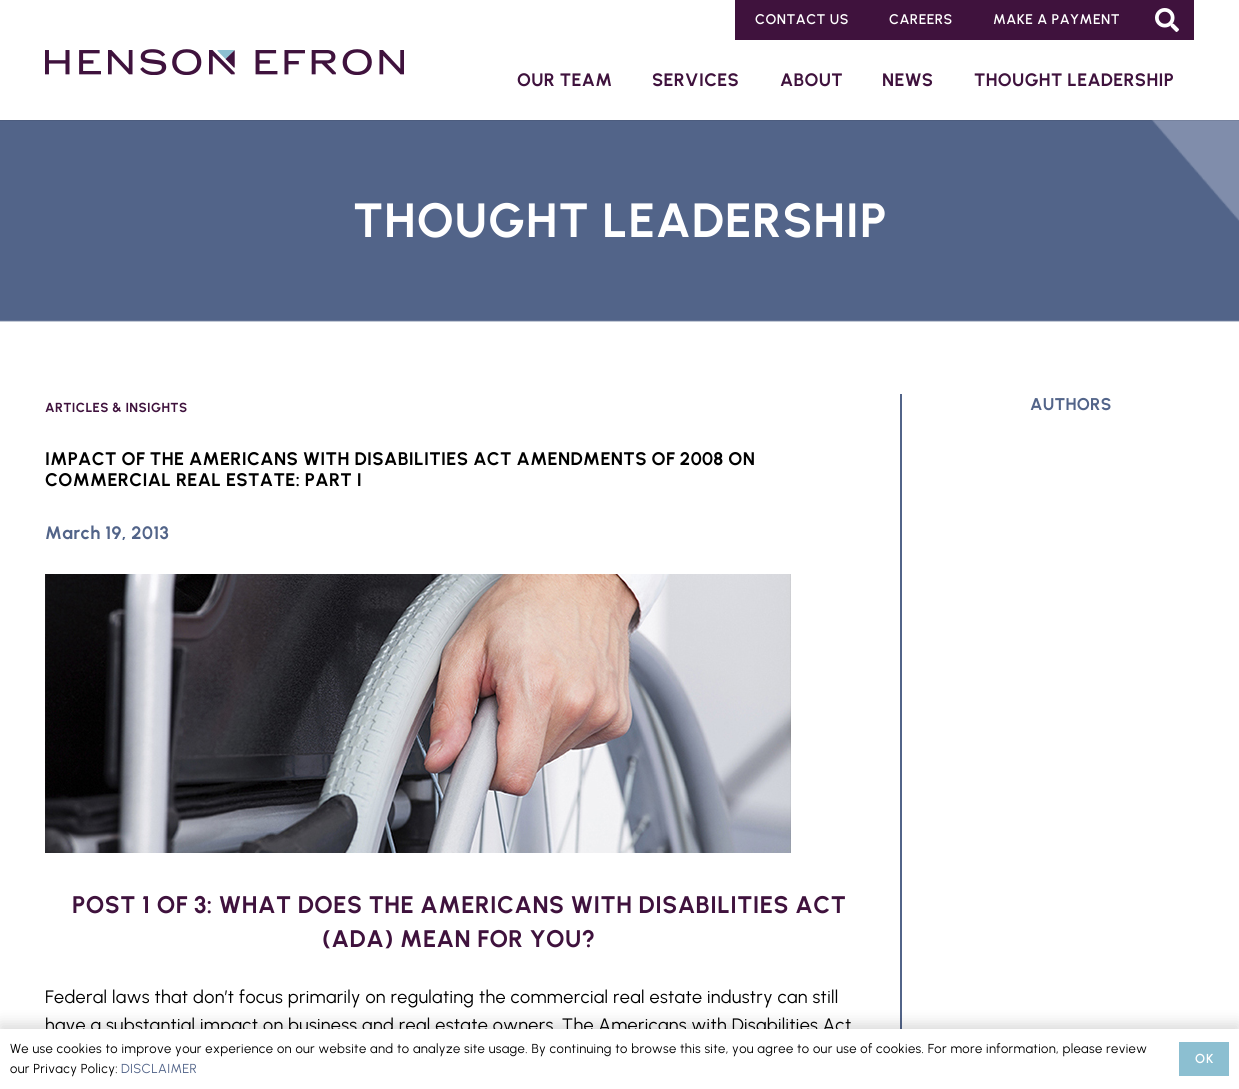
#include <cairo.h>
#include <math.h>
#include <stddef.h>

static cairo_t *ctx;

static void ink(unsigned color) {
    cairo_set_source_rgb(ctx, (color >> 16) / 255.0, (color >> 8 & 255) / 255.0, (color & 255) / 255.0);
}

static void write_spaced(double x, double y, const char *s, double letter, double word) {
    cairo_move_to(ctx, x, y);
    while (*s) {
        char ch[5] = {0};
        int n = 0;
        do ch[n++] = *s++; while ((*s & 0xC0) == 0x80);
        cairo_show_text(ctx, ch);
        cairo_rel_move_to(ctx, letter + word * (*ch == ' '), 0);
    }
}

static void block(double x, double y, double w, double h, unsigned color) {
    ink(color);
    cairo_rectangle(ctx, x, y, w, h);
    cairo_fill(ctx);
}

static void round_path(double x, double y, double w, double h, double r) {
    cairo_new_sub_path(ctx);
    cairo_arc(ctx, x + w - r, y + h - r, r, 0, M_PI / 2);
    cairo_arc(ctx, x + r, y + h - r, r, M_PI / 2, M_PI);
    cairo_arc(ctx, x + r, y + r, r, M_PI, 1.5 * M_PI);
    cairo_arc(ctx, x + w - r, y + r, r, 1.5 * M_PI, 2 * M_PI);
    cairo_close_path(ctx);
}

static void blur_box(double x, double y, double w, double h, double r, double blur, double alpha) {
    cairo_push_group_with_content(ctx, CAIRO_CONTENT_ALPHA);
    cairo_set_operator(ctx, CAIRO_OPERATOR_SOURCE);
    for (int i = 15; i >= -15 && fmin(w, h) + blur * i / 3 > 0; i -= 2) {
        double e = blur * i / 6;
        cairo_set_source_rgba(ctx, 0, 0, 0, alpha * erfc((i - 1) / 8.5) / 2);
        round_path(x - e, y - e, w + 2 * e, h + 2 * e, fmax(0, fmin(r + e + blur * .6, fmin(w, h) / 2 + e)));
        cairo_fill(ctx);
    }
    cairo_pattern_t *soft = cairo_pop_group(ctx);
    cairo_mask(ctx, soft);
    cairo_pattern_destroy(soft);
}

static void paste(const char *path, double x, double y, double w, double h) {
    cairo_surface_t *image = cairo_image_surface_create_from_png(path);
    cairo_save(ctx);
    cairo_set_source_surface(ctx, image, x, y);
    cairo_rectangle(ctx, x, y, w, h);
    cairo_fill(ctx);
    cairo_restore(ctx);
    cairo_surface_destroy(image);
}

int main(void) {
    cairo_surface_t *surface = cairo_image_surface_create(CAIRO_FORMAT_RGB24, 1239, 1089);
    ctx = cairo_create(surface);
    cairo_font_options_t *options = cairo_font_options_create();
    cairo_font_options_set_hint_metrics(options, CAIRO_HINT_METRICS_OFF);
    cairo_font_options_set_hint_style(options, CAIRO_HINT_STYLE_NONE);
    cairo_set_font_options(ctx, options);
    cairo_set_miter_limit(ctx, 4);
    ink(0xffffff);
    cairo_paint(ctx);
    block(735, 0, 459, 40, 0x3f123d);
    cairo_select_font_face(ctx, "Urbanist SemiBold", CAIRO_FONT_SLANT_NORMAL, CAIRO_FONT_WEIGHT_NORMAL);
    cairo_set_font_size(ctx, 14);
    ink(0xffffff);
    write_spaced(755, 24, "CONTACT US", 0.5, 0);
    write_spaced(889, 24, "CAREERS", 0.5, 0);
    write_spaced(993, 24, "MAKE A PAYMENT", 0.5, 0);
    paste("pic1.png", 1155, 8, 24, 24);
    paste("pic3.png", 0, 120, 1239, 202);
    cairo_set_source_rgba(ctx, 0, 0, 0, 0.08);
    cairo_rectangle(ctx, 0, 120, 1239, 1);
    cairo_fill(ctx);
    paste("pic2.png", 45, 49, 359, 26);
    cairo_select_font_face(ctx, "Urbanist", CAIRO_FONT_SLANT_NORMAL, CAIRO_FONT_WEIGHT_BOLD);
    cairo_set_font_size(ctx, 18);
    ink(0x3f123d);
    write_spaced(517, 86, "OUR TEAM", 0.36, 0);
    write_spaced(652, 86, "SERVICES", 0.36, 0);
    write_spaced(780, 86, "ABOUT", 0.36, 0);
    write_spaced(882, 86, "NEWS", 0.36, 0);
    write_spaced(974, 86, "THOUGHT LEADERSHIP", 0.36, 0);
    cairo_set_font_size(ctx, 48);
    ink(0xffffff);
    write_spaced(353, 237, "THOUGHT LEADERSHIP", 1, 0);
    block(900, 394, 2, 635, 0x526489);
    cairo_set_font_size(ctx, 13.1);
    ink(0x3f123d);
    write_spaced(45, 412, "ARTICLES & INSIGHTS", 0.36, 0);
    cairo_set_font_size(ctx, 18.2);
    ink(0x000000);
    write_spaced(45, 465, "IMPACT OF THE AMERICANS WITH DISABILITIES ACT AMENDMENTS OF 2008 ON", 0.36, 0);
    write_spaced(45, 486, "COMMERCIAL REAL ESTATE: PART I", 0.36, 0);
    cairo_set_font_size(ctx, 18);
    ink(0x526489);
    write_spaced(45, 539, "March 19, 2013", 0.36, 0);
    paste("pic4.png", 45, 574, 746, 279);
    cairo_set_font_size(ctx, 24);
    ink(0x3f123d);
    write_spaced(72, 913, "POST 1 OF 3: WHAT DOES THE AMERICANS WITH DISABILITIES ACT", 0.48, 0);
    write_spaced(322, 947, "(ADA) MEAN FOR YOU?", 0.48, 0);
    cairo_select_font_face(ctx, "Urbanist", CAIRO_FONT_SLANT_NORMAL, CAIRO_FONT_WEIGHT_NORMAL);
    cairo_set_font_size(ctx, 18);
    ink(0x000000);
    write_spaced(45, 1003, "Federal laws that don’t focus primarily on regulating the commercial real estate industry can still", 0.36, 0);
    write_spaced(45, 1031, "have a substantial impact on business and real estate owners. The Americans with Disabilities Act", 0.36, 0);
    cairo_select_font_face(ctx, "Urbanist", CAIRO_FONT_SLANT_NORMAL, CAIRO_FONT_WEIGHT_BOLD);
    cairo_set_font_size(ctx, 17);
    ink(0x526489);
    write_spaced(1030, 410, "AUTHORS", 0.25, 0);
    ink(0x000000);
    blur_box(0, 1024, 1239, 60, 0, 7.5, 0.15);
    block(0, 1029, 1239, 60, 0xffffff);
    cairo_select_font_face(ctx, "Urbanist", CAIRO_FONT_SLANT_NORMAL, CAIRO_FONT_WEIGHT_NORMAL);
    cairo_set_font_size(ctx, 13);
    ink(0x000000);
    write_spaced(10, 1053, "We use cookies to improve your experience on our website and to analyze site usage. By continuing to browse this site, you agree to our use of cookies. For more information, please review", 0.36, 0);
    write_spaced(10, 1073, "our Privacy Policy:", 0.36, 0);
    ink(0x526489);
    write_spaced(121, 1073, "DISCLAIMER", 0.36, 0);
    block(1179, 1042, 50, 34, 0x8cbfd1);
    cairo_select_font_face(ctx, "Urbanist SemiBold", CAIRO_FONT_SLANT_NORMAL, CAIRO_FONT_WEIGHT_NORMAL);
    ink(0xffffff);
    write_spaced(1195, 1063, "OK", 1, 0);
    cairo_surface_write_to_png(surface, "screenshot.png");
    cairo_font_options_destroy(options);
    cairo_destroy(ctx);
    cairo_surface_destroy(surface);
    return 0;
}
